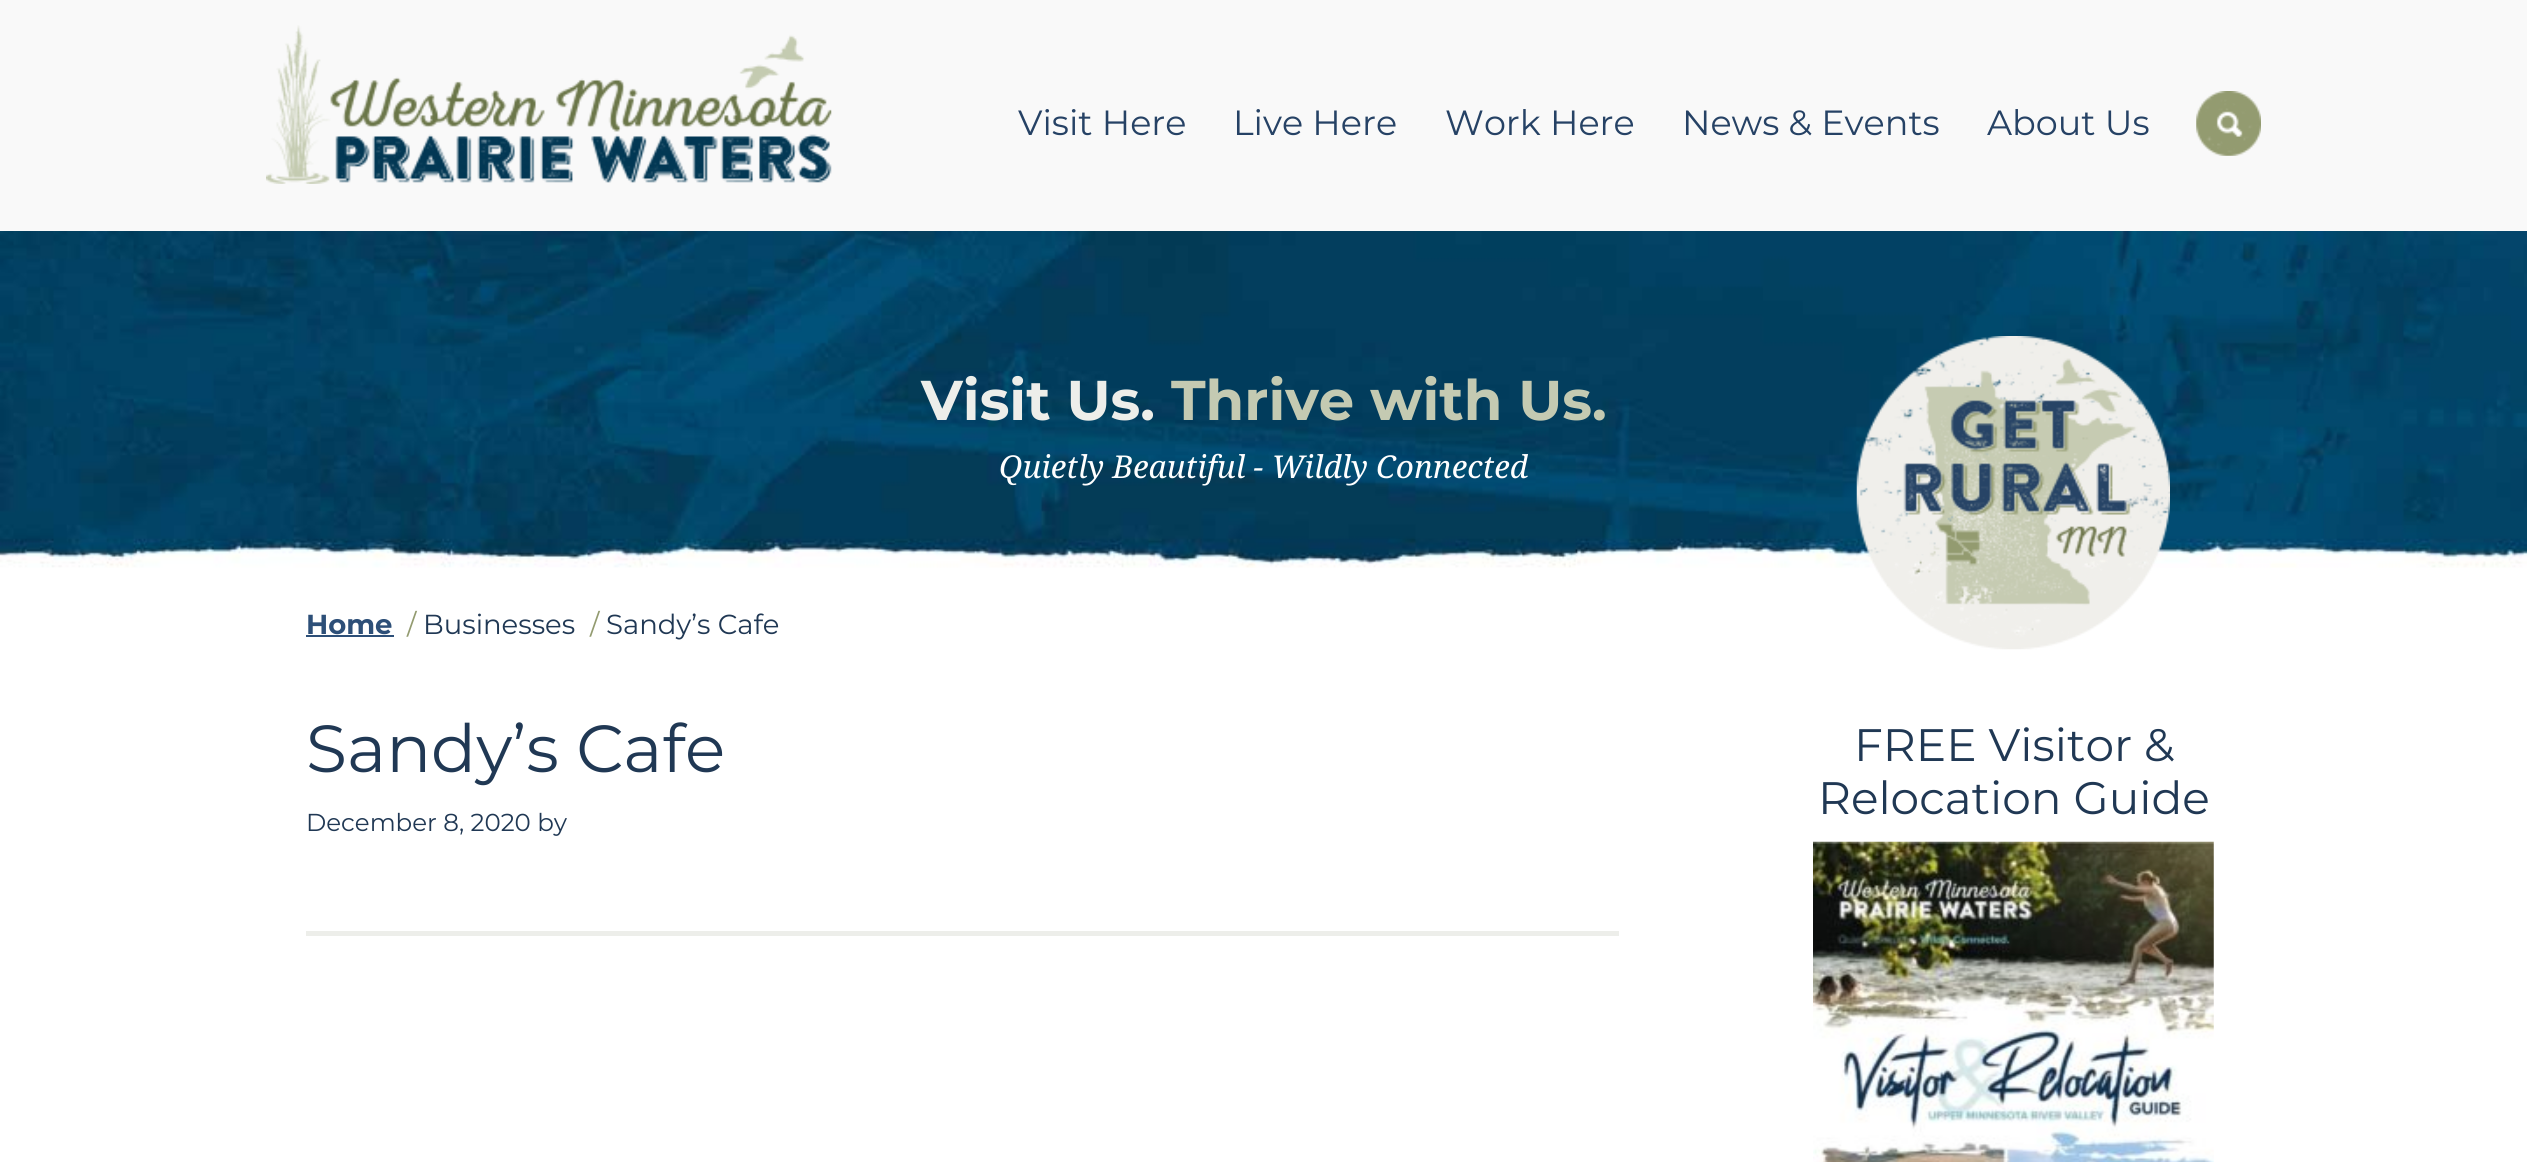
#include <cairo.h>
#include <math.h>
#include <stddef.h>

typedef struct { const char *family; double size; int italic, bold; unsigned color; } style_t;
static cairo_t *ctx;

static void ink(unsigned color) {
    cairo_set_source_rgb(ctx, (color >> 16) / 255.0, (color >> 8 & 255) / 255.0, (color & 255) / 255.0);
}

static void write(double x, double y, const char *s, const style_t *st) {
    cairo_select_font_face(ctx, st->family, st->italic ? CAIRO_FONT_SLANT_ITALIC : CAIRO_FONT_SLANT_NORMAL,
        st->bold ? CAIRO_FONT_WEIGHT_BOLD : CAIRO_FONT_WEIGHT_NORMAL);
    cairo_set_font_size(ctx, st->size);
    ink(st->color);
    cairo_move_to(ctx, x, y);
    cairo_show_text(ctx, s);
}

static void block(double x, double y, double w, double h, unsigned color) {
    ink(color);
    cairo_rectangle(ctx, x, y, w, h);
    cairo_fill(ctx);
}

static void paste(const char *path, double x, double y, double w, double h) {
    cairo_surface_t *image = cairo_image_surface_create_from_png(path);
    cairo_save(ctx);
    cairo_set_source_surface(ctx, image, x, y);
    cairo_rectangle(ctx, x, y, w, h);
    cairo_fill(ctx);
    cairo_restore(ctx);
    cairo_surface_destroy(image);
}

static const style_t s1 = {"Montserrat", 35, 0, 0, 0x264265};
static const style_t s2 = {"Montserrat", 56, 0, 1, 0xedeeea};
static const style_t s3 = {"Montserrat", 56, 0, 1, 0xc4cab2};
static const style_t s4 = {"Droid Serif", 31.5, 1, 0, 0xffffff};
static const style_t s5 = {"Montserrat", 27.5, 0, 1, 0x2d4f78};
static const style_t s6 = {"Montserrat", 27.5, 0, 0, 0x939b70};
static const style_t s7 = {"Montserrat", 27.5, 0, 0, 0x203854};
static const style_t s8 = {"Montserrat", 66.5, 0, 0, 0x203854};
static const style_t s9 = {"Montserrat", 24.5, 0, 0, 0x203854};
static const style_t s10 = {"Montserrat", 45.5, 0, 0, 0x203854};

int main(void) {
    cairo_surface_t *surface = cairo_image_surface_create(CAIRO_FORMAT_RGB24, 2527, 1162);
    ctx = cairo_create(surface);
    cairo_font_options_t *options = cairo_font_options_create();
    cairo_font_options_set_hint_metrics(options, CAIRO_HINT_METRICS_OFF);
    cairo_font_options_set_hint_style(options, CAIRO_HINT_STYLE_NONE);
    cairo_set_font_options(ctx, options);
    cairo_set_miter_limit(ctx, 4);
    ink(0xffffff);
    cairo_paint(ctx);
    block(0, 0, 2527, 231, 0xf9f9f9);
    paste("pic1.png", 266, 25, 566, 159);
    write(1018, 135, "Visit Here", &s1);
    write(1233, 135, "Live Here", &s1);
    write(1445, 135, "Work Here", &s1);
    write(1682, 135, "News & Events", &s1);
    write(1987, 135, "About Us", &s1);
    paste("pic2.png", 2196, 91, 65, 65);
    paste("pic3.png", 0, 231, 2527, 337);
    write(921, 420, "Visit Us.", &s2);
    write(1171, 420, "Thrive with Us.", &s3);
    write(999, 478, "Quietly Beautiful - Wildly Connected", &s4);
    write(306, 634, "Home", &s5);
    block(306, 635, 88, 2, 0x2d4f78);
    write(407, 634, "/", &s6);
    write(423, 634, "Businesses", &s7);
    write(590, 634, "/", &s6);
    write(606, 634, "Sandy’s Cafe", &s7);
    write(306, 772, "Sandy’s Cafe", &s8);
    write(306, 831, "December 8, 2020 by", &s9);
    block(306, 931, 1313, 5, 0xedeeea);
    paste("pic4.png", 1856, 336, 314, 314);
    write(1854, 761, "FREE Visitor &", &s10);
    write(1818, 814, "Relocation Guide", &s10);
    paste("pic5.png", 1813, 841, 401, 321);
    cairo_surface_write_to_png(surface, "screenshot.png");
    cairo_font_options_destroy(options);
    cairo_destroy(ctx);
    cairo_surface_destroy(surface);
    return 0;
}
